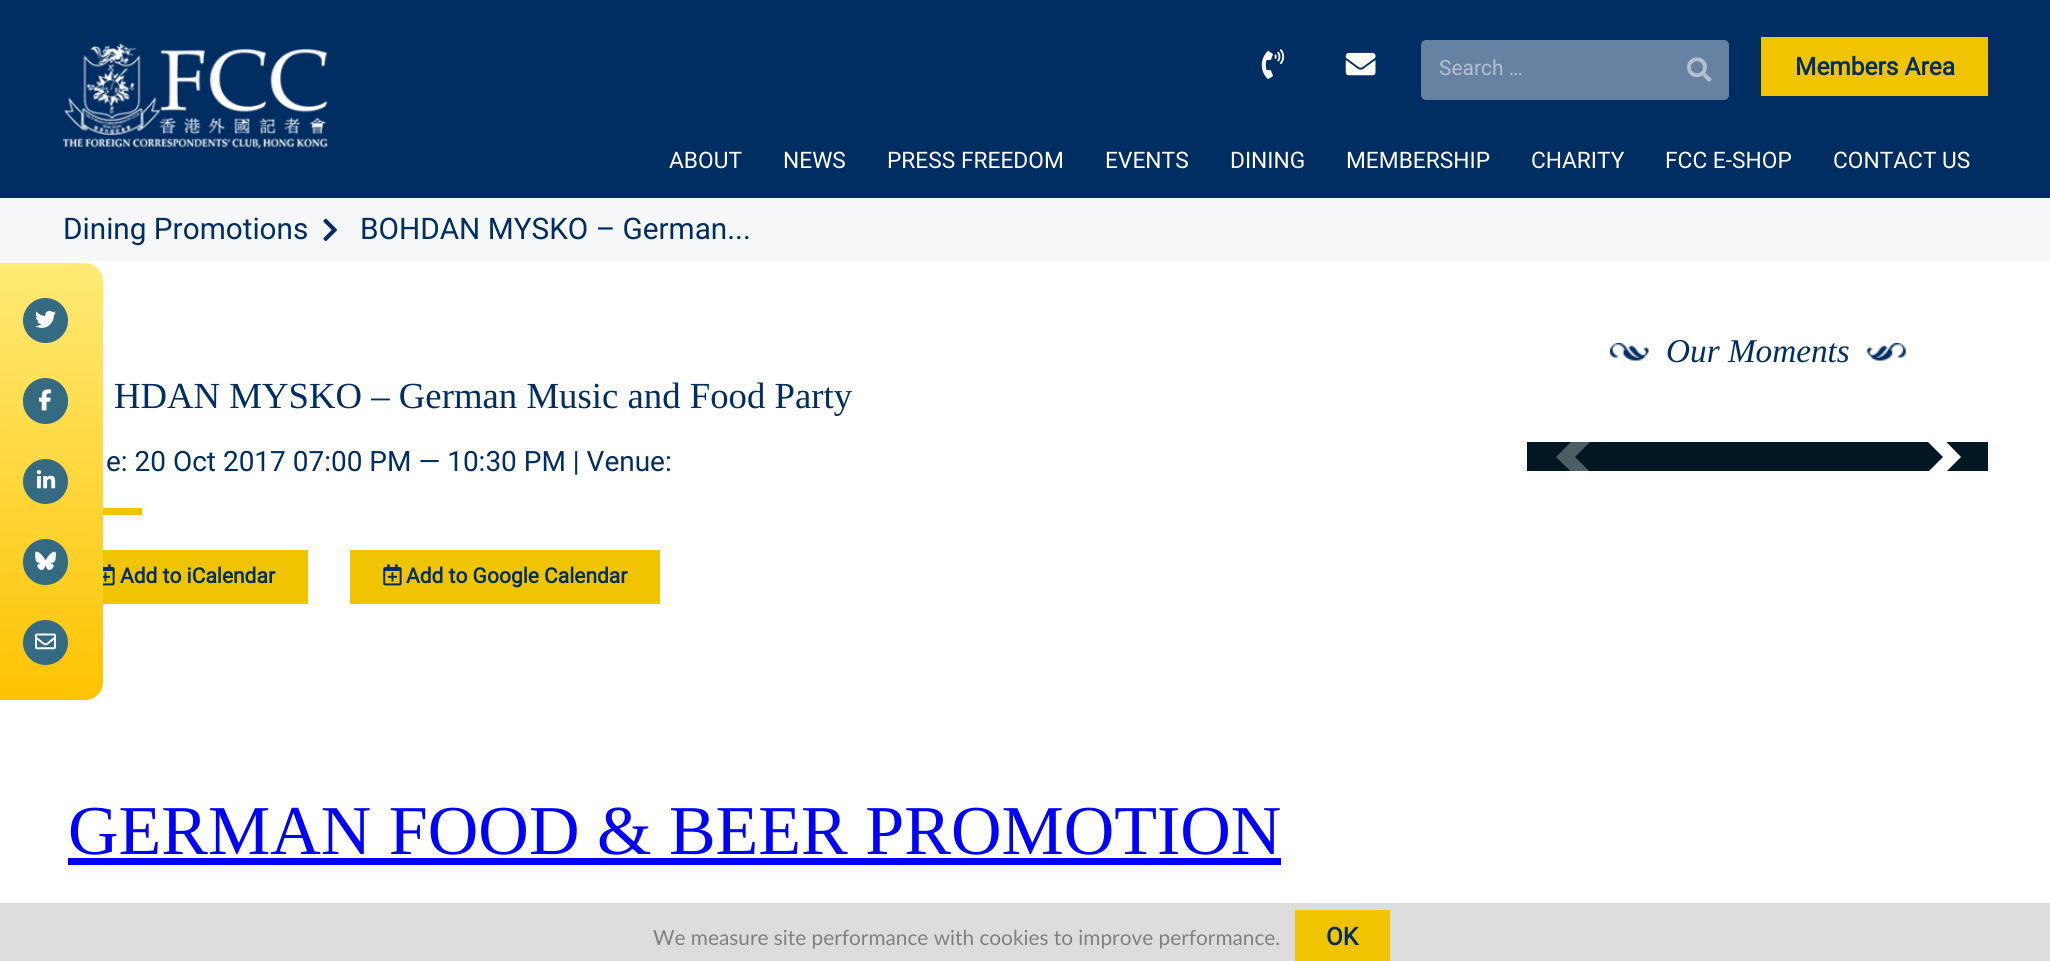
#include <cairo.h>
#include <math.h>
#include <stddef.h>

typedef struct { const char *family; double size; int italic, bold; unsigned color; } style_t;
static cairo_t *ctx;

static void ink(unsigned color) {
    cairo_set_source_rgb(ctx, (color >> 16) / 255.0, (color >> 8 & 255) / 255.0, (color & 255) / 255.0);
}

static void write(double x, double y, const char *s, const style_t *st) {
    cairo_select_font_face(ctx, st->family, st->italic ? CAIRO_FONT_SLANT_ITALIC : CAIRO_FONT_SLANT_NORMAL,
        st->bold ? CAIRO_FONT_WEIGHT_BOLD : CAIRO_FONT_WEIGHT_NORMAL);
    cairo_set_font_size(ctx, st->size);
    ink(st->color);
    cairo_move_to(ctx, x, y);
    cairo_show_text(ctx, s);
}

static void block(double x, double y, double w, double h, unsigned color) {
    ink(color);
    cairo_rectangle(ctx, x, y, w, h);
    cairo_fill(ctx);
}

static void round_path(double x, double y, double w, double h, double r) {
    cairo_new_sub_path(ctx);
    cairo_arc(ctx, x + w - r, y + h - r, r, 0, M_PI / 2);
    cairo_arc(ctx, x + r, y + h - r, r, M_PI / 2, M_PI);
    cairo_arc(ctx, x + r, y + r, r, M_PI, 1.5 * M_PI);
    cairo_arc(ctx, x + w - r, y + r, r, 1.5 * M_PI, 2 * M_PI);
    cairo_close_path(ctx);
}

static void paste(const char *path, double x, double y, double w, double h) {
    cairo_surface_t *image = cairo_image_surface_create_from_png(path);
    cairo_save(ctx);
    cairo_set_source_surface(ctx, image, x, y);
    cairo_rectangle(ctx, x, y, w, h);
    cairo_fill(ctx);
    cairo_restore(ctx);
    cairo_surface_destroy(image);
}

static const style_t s1 = {"Roboto", 21, 0, 0, 0xb3c0d0};
static const style_t s2 = {"Roboto", 24.5, 0, 1, 0x002d62};
static const style_t s3 = {"Roboto", 22.75, 0, 0, 0xffffff};
static const style_t s4 = {"Roboto", 29.75, 0, 0, 0x002d62};
static const style_t s5 = {"Liberation Serif", 33.25, 1, 0, 0x002d62};
static const style_t s6 = {"Liberation Serif", 36.75, 0, 0, 0x002d62};
static const style_t s7 = {"Roboto", 28, 0, 0, 0x002d62};
static const style_t s8 = {"Roboto", 21, 0, 1, 0x002d62};
static const style_t s9 = {"Liberation Serif", 70, 0, 0, 0x0000ff};
static const style_t s10 = {"Lato", 20.8, 0, 0, 0x808080};

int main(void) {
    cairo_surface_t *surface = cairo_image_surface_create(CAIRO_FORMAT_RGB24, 2050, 961);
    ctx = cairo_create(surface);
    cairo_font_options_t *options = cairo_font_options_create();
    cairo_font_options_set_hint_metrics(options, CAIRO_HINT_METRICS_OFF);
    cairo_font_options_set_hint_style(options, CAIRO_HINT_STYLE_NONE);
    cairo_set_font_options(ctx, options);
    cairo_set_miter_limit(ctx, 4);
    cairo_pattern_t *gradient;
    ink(0xffffff);
    cairo_paint(ctx);
    gradient = cairo_pattern_create_linear(52, 263, 52, 700);
    cairo_pattern_add_color_stop_rgba(gradient, 0, 1, 0.918, 0.463, 1);
    cairo_pattern_add_color_stop_rgba(gradient, 1, 0.996, 0.765, 0.008, 1);
    cairo_set_source(ctx, gradient);
    cairo_pattern_destroy(gradient);
    cairo_new_path(ctx);
    cairo_move_to(ctx, 0, 263);
    cairo_line_to(ctx, 85, 263);
    cairo_curve_to(ctx, 95, 263, 103, 271, 103, 281);
    cairo_line_to(ctx, 103, 682);
    cairo_curve_to(ctx, 103, 692, 95, 700, 85, 700);
    cairo_line_to(ctx, 0, 700);
    cairo_close_path(ctx);
    cairo_fill(ctx);
    ink(0x356b82);
    cairo_arc(ctx, 45.5, 320.5, 22.5, 0, 2 * M_PI);
    cairo_fill(ctx);
    paste("pic1.png", 35, 310, 21, 18);
    round_path(23, 378, 45, 46, 22.5);
    cairo_fill(ctx);
    paste("pic2.png", 39, 389, 13, 22);
    cairo_arc(ctx, 45.5, 481.5, 22.5, 0, 2 * M_PI);
    cairo_fill(ctx);
    paste("pic3.png", 36, 469, 20, 20);
    round_path(23, 539, 45, 46, 22.5);
    cairo_fill(ctx);
    paste("pic4.png", 35, 551, 21, 19);
    cairo_arc(ctx, 45.5, 642.5, 22.5, 0, 2 * M_PI);
    cairo_fill(ctx);
    paste("pic5.png", 35, 633, 21, 17);
    block(0, 0, 2050, 198, 0x002d62);
    paste("pic6.png", 63, 43, 265, 106);
    paste("pic7.png", 1261, 49, 24, 30);
    paste("pic8.png", 1345, 52, 31, 24);
    ink(0x6681a1);
    round_path(1421, 40, 308, 60, 5);
    cairo_fill(ctx);
    write(1439, 75, "Search …", &s1);
    paste("pic9.png", 1687, 57, 25, 25);
    block(1761, 37, 227, 59, 0xf1c400);
    write(1795, 75, "Members Area", &s2);
    write(669, 168, "ABOUT", &s3);
    write(783, 168, "NEWS", &s3);
    write(887, 168, "PRESS FREEDOM", &s3);
    write(1105, 168, "EVENTS", &s3);
    write(1230, 168, "DINING", &s3);
    write(1346, 168, "MEMBERSHIP", &s3);
    write(1531, 168, "CHARITY", &s3);
    write(1665, 168, "FCC E-SHOP", &s3);
    write(1833, 168, "CONTACT US", &s3);
    block(0, 198, 2050, 63, 0xf6f7f8);
    write(63, 239, "Dining Promotions", &s4);
    paste("pic10.png", 323, 218, 14, 24);
    write(360, 239, "BOHDAN MYSKO – German...", &s4);
    paste("pic11.png", 1610, 343, 39, 18);
    write(1666, 362, "Our Moments", &s5);
    paste("pic12.png", 1867, 343, 39, 18);
    block(1527, 442, 461, 29, 0x011822);
    cairo_set_source_rgba(ctx, 1, 1, 1, 0.3);
    cairo_new_path(ctx);
    cairo_move_to(ctx, 1556, 457);
    cairo_line_to(ctx, 1603, 503);
    cairo_line_to(ctx, 1612, 494);
    cairo_line_to(ctx, 1575, 457);
    cairo_line_to(ctx, 1612, 420);
    cairo_line_to(ctx, 1603, 410);
    cairo_close_path(ctx);
    cairo_fill(ctx);
    ink(0xffffff);
    cairo_new_path(ctx);
    cairo_move_to(ctx, 1961, 457);
    cairo_line_to(ctx, 1915, 410);
    cairo_line_to(ctx, 1906, 420);
    cairo_line_to(ctx, 1943, 457);
    cairo_line_to(ctx, 1906, 494);
    cairo_line_to(ctx, 1915, 503);
    cairo_close_path(ctx);
    cairo_fill(ctx);
    write(114, 408, "HDAN MYSKO – German Music and Food Party", &s6);
    write(106, 471, "e: 20 Oct 2017 07:00 PM — 10:30 PM | Venue:", &s7);
    block(103, 508, 39, 7, 0xf1c400);
    block(103, 550, 205, 54, 0xf1c400);
    paste("pic13.png", 103, 564, 12, 22);
    write(120, 583, "Add to iCalendar", &s8);
    block(350, 550, 310, 54, 0xf1c400);
    paste("pic14.png", 383, 564, 19, 22);
    write(406, 583, "Add to Google Calendar", &s8);
    write(68, 854, "GERMAN FOOD & BEER PROMOTION", &s9);
    block(68, 858, 1213, 7, 0x0000ff);
    block(0, 903, 2050, 58, 0xdddddd);
    write(653, 945, "We measure site performance with cookies to improve performance.", &s10);
    block(1295, 910, 95, 51, 0xf1c400);
    write(1326, 945, "OK", &s2);
    cairo_surface_write_to_png(surface, "screenshot.png");
    cairo_font_options_destroy(options);
    cairo_destroy(ctx);
    cairo_surface_destroy(surface);
    return 0;
}
